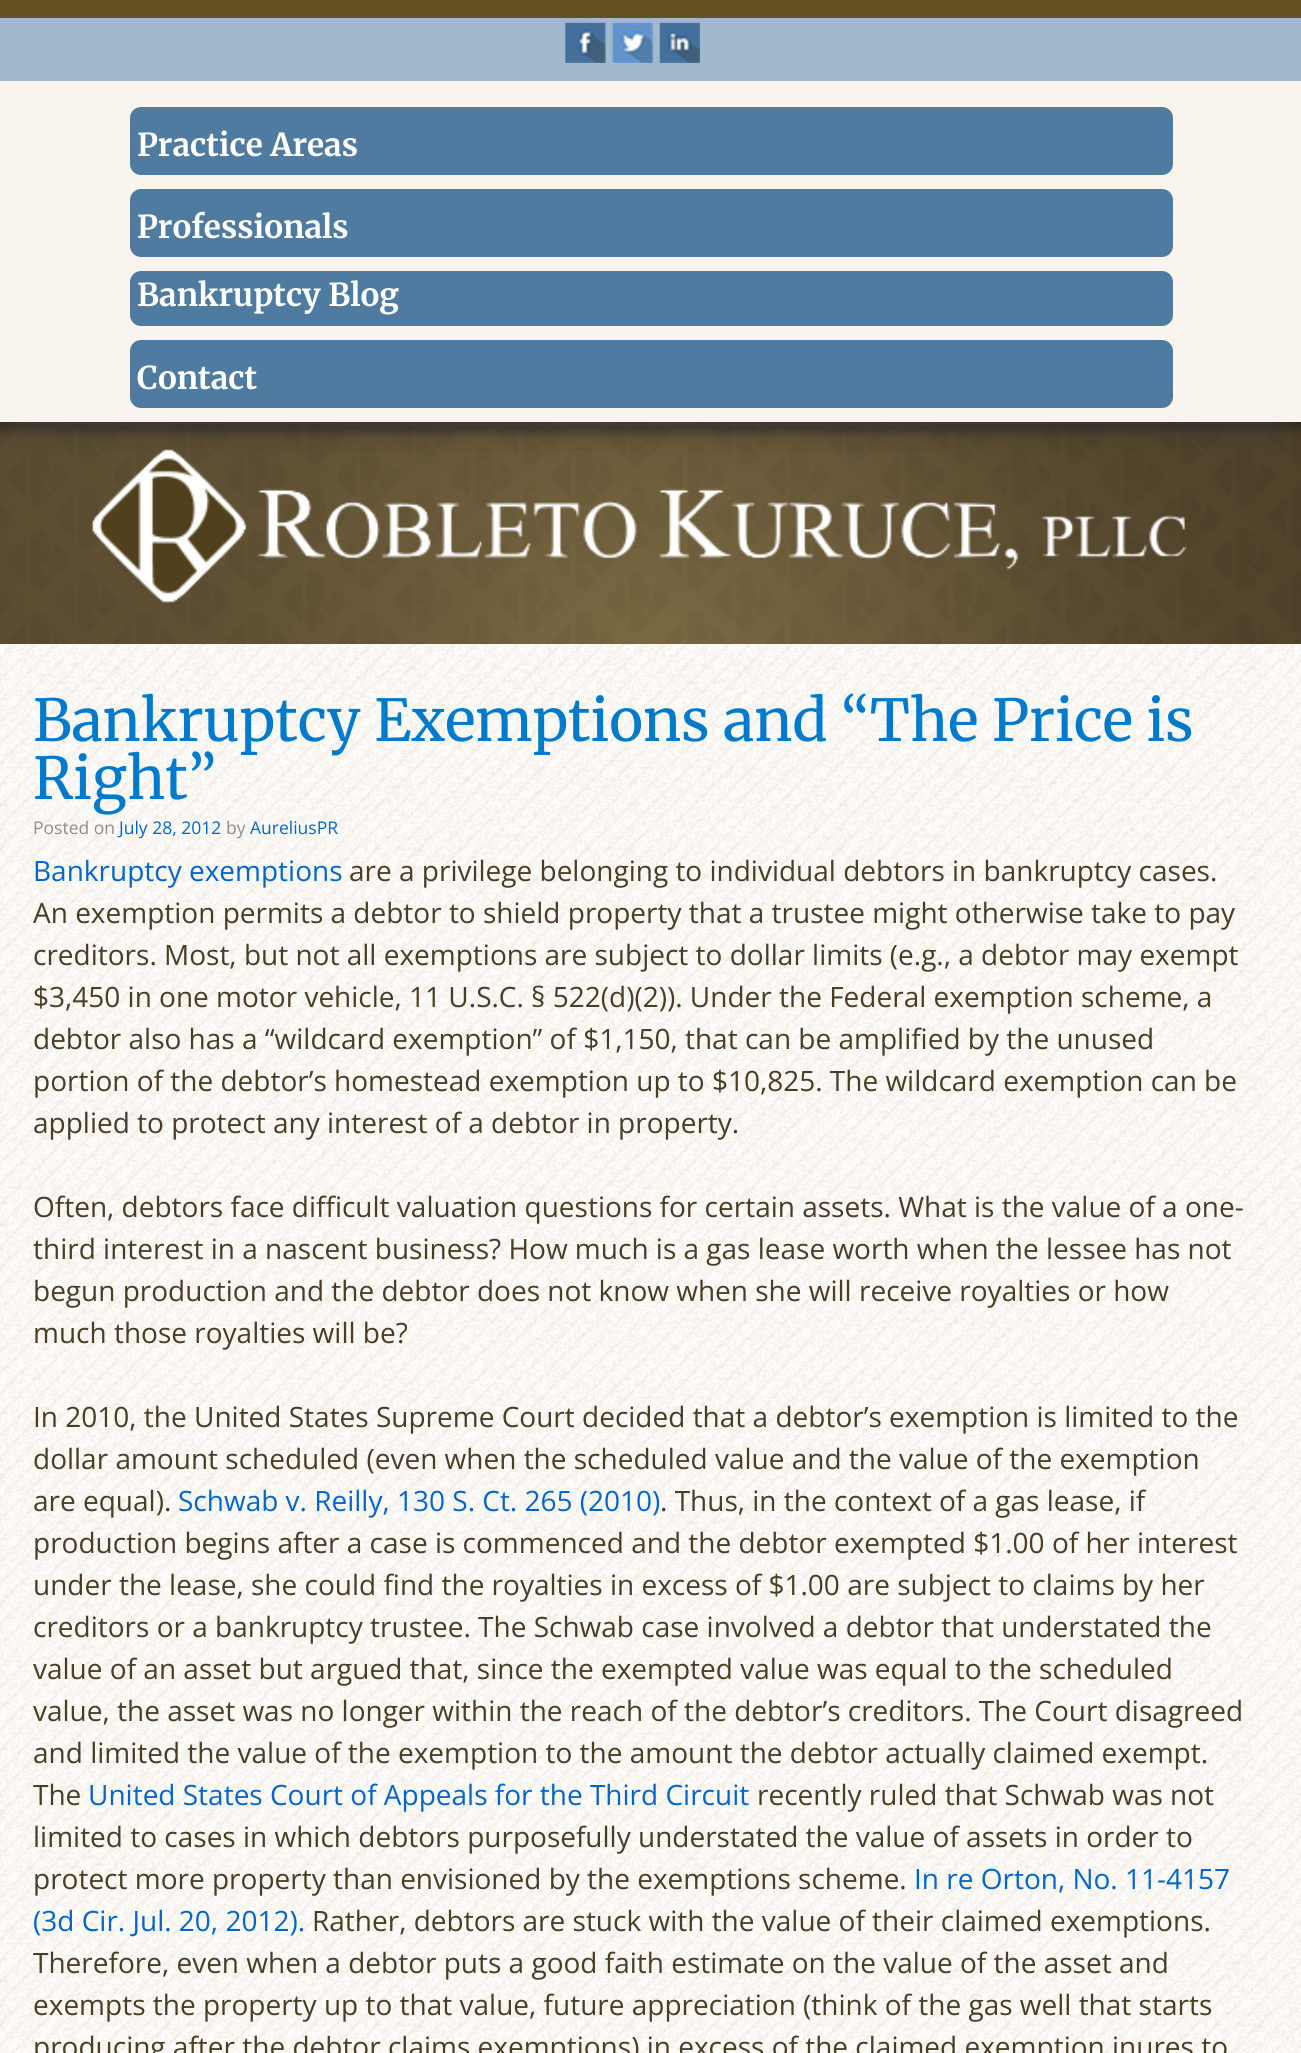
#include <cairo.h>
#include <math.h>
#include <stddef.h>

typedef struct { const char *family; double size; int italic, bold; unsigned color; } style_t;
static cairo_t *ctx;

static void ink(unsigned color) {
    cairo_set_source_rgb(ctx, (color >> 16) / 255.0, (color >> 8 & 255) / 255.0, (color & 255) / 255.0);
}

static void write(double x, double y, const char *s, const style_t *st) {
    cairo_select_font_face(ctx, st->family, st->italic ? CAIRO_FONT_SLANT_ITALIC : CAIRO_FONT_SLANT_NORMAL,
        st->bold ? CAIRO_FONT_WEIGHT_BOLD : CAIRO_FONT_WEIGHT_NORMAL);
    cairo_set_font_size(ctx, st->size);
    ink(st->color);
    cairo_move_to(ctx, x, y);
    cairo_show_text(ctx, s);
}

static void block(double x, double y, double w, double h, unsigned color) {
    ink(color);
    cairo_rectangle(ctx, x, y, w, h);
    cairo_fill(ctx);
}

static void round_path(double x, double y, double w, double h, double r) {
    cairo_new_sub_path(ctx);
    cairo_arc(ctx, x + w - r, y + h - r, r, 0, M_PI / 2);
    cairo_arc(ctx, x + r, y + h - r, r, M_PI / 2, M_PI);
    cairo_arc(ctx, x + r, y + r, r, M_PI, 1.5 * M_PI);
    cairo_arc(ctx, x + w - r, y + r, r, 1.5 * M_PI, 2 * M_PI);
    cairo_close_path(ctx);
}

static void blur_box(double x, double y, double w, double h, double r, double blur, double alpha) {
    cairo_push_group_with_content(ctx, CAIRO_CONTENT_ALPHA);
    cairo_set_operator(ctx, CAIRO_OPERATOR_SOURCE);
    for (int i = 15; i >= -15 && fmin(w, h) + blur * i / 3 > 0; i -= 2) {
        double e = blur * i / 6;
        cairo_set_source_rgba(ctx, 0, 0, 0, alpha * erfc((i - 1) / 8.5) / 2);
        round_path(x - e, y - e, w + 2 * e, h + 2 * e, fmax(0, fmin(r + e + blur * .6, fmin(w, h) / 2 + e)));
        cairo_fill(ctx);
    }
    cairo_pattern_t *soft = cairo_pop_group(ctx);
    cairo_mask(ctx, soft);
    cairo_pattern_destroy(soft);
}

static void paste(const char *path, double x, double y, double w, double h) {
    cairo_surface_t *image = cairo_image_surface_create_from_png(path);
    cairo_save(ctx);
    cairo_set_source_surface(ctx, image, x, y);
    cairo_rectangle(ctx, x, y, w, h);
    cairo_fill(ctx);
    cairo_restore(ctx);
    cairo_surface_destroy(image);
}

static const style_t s1 = {"Merriweather", 31.5, 0, 1, 0xffffff};
static const style_t s2 = {"Merriweather", 57.75, 0, 0, 0x007acc};
static const style_t s3 = {"Open Sans", 17.5, 0, 0, 0x8e8c84};
static const style_t s4 = {"Open Sans", 17.5, 0, 0, 0x0066cc};
static const style_t s5 = {"Open Sans", 28, 0, 0, 0x0066cc};
static const style_t s6 = {"Open Sans", 28, 0, 0, 0x4a3d26};

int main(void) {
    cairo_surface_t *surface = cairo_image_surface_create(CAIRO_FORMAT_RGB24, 1301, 2053);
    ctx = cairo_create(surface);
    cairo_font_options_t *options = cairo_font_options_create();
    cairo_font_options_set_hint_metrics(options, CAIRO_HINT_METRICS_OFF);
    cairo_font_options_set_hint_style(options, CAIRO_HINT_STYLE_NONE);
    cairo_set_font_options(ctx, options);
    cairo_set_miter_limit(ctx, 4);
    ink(0xffffff);
    cairo_paint(ctx);
    paste("pic1.png", 0, 644, 1301, 1409);
    block(0, 0, 1301, 18, 0x645225);
    block(0, 18, 1301, 63, 0xa0b9cd);
    paste("pic2.png", 565, 22, 41, 41);
    paste("pic3.png", 612, 22, 41, 41);
    paste("pic4.png", 659, 22, 41, 41);
    paste("pic5.png", 0, 422, 1301, 222);
    paste("pic6.png", 92, 449, 1095, 155);
    ink(0x404141);
    blur_box(18, 116, 1267, 306, 0, 13, 1);
    block(0, 81, 1301, 341, 0xf9f5ee);
    ink(0x4f7ba0);
    round_path(130, 107, 1043, 68, 11);
    cairo_fill(ctx);
    write(137, 156, "Practice Areas", &s1);
    ink(0x4f7ba0);
    round_path(130, 189, 1043, 68, 11);
    cairo_fill(ctx);
    write(137, 238, "Professionals", &s1);
    ink(0x4f7ba0);
    round_path(130, 271, 1043, 55, 11);
    cairo_fill(ctx);
    write(137, 306, "Bankruptcy Blog", &s1);
    ink(0x4f7ba0);
    round_path(130, 340, 1043, 68, 11);
    cairo_fill(ctx);
    write(137, 389, "Contact", &s1);
    write(33, 741, "Bankruptcy Exemptions and “The Price is", &s2);
    write(33, 799, "Right”", &s2);
    write(33, 834, "Posted on", &s3);
    write(119, 834, "July 28, 2012", &s4);
    write(226, 834, "by", &s3);
    write(250, 834, "AureliusPR", &s4);
    write(33, 881, "Bankruptcy exemptions", &s5);
    write(349, 881, "are a privilege belonging to individual debtors in bankruptcy cases.", &s6);
    write(33, 923, "An exemption permits a debtor to shield property that a trustee might otherwise take to pay", &s6);
    write(33, 965, "creditors. Most, but not all exemptions are subject to dollar limits (e.g., a debtor may exempt", &s6);
    write(33, 1007, "$3,450 in one motor vehicle, 11 U.S.C. § 522(d)(2)). Under the Federal exemption scheme, a", &s6);
    write(33, 1049, "debtor also has a “wildcard exemption” of $1,150, that can be amplified by the unused", &s6);
    write(33, 1091, "portion of the debtor’s homestead exemption up to $10,825. The wildcard exemption can be", &s6);
    write(33, 1133, "applied to protect any interest of a debtor in property.", &s6);
    write(33, 1217, "Often, debtors face difficult valuation questions for certain assets. What is the value of a one-", &s6);
    write(33, 1259, "third interest in a nascent business? How much is a gas lease worth when the lessee has not", &s6);
    write(33, 1301, "begun production and the debtor does not know when she will receive royalties or how", &s6);
    write(33, 1343, "much those royalties will be?", &s6);
    write(33, 1427, "In 2010, the United States Supreme Court decided that a debtor’s exemption is limited to the", &s6);
    write(33, 1469, "dollar amount scheduled (even when the scheduled value and the value of the exemption", &s6);
    write(33, 1511, "are equal).", &s6);
    write(178, 1511, "Schwab v. Reilly, 130 S. Ct. 265 (2010)", &s5);
    write(660, 1511, ". Thus, in the context of a gas lease, if", &s6);
    write(33, 1553, "production begins after a case is commenced and the debtor exempted $1.00 of her interest", &s6);
    write(33, 1595, "under the lease, she could find the royalties in excess of $1.00 are subject to claims by her", &s6);
    write(33, 1637, "creditors or a bankruptcy trustee. The Schwab case involved a debtor that understated the", &s6);
    write(33, 1679, "value of an asset but argued that, since the exempted value was equal to the scheduled", &s6);
    write(33, 1721, "value, the asset was no longer within the reach of the debtor’s creditors. The Court disagreed", &s6);
    write(33, 1763, "and limited the value of the exemption to the amount the debtor actually claimed exempt.", &s6);
    write(33, 1805, "The", &s6);
    write(88, 1805, "United States Court of Appeals for the Third Circuit", &s5);
    write(757, 1805, "recently ruled that Schwab was not", &s6);
    write(33, 1847, "limited to cases in which debtors purposefully understated the value of assets in order to", &s6);
    write(33, 1889, "protect more property than envisioned by the exemptions scheme.", &s6);
    write(914, 1889, "In re Orton, No. 11-4157", &s5);
    write(33, 1931, "(3d Cir. Jul. 20, 2012).", &s5);
    write(312, 1931, "Rather, debtors are stuck with the value of their claimed exemptions.", &s6);
    write(33, 1973, "Therefore, even when a debtor puts a good faith estimate on the value of the asset and", &s6);
    write(33, 2015, "exempts the property up to that value, future appreciation (think of the gas well that starts", &s6);
    write(33, 2057, "producing after the debtor claims exemptions) in excess of the claimed exemption inures to", &s6);
    cairo_surface_write_to_png(surface, "screenshot.png");
    cairo_font_options_destroy(options);
    cairo_destroy(ctx);
    cairo_surface_destroy(surface);
    return 0;
}
